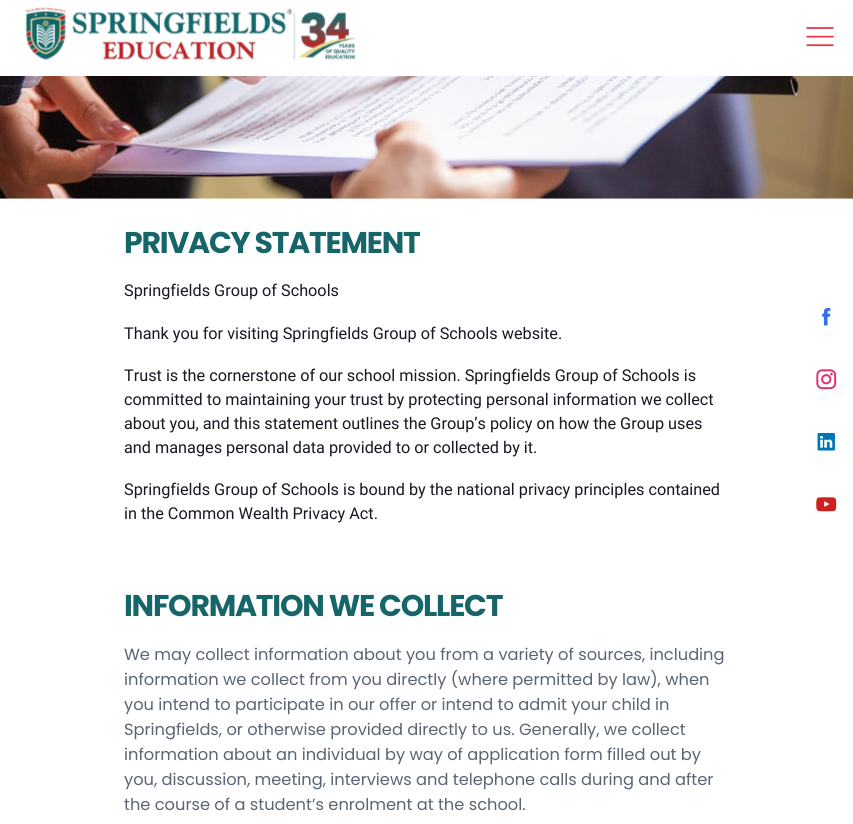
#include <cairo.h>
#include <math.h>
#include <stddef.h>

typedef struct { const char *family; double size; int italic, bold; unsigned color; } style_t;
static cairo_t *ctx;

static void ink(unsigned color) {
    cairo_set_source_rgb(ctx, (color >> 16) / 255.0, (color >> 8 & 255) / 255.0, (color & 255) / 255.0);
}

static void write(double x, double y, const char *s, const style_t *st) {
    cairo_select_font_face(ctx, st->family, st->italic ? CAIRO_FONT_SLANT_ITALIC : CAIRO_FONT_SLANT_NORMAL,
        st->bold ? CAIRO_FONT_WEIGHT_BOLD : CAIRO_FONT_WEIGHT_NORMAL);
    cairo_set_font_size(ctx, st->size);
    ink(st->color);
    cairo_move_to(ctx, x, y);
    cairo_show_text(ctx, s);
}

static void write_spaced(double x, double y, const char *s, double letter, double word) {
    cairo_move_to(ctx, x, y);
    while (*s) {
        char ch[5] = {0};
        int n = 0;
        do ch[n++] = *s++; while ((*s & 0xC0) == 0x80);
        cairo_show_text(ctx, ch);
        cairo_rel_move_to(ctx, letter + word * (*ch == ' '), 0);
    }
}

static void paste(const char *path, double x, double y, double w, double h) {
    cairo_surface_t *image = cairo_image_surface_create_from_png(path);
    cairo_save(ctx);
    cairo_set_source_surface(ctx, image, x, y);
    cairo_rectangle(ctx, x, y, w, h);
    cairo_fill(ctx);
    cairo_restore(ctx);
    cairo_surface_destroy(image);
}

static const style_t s1 = {"Roboto", 16.25, 0, 0, 0x161922};
static const style_t s2 = {"Poppins", 16.25, 0, 0, 0x596572};

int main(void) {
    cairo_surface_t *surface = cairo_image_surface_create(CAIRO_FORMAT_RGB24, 853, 824);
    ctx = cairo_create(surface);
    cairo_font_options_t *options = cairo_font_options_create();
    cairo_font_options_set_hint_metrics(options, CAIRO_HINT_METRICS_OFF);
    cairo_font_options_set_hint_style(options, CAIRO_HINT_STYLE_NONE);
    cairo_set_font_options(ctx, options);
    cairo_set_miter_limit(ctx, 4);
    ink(0xffffff);
    cairo_paint(ctx);
    paste("pic1.png", 25, 7, 332, 53);
    paste("pic2.png", 806, 27, 28, 20);
    paste("pic3.png", 0, 76, 853, 123);
    cairo_select_font_face(ctx, "Poppins", CAIRO_FONT_SLANT_NORMAL, CAIRO_FONT_WEIGHT_BOLD);
    cairo_set_font_size(ctx, 30);
    ink(0x166669);
    write_spaced(124, 253, "PRIVACY STATEMENT", -1.25, 0);
    write(124, 296, "Springfields Group of Schools", &s1);
    write(124, 339, "Thank you for visiting Springfields Group of Schools website.", &s1);
    write(124, 381, "Trust is the cornerstone of our school mission. Springfields Group of Schools is", &s1);
    write(124, 405, "committed to maintaining your trust by protecting personal information we collect", &s1);
    write(124, 429, "about you, and this statement outlines the Group’s policy on how the Group uses", &s1);
    write(124, 453, "and manages personal data provided to or collected by it.", &s1);
    write(124, 495, "Springfields Group of Schools is bound by the national privacy principles contained", &s1);
    write(124, 519, "in the Common Wealth Privacy Act.", &s1);
    cairo_select_font_face(ctx, "Poppins", CAIRO_FONT_SLANT_NORMAL, CAIRO_FONT_WEIGHT_BOLD);
    cairo_set_font_size(ctx, 30);
    ink(0x166669);
    write_spaced(124, 616, "INFORMATION WE COLLECT", -1.25, 0);
    write(124, 660, "We may collect information about you from a variety of sources, including", &s2);
    write(124, 685, "information we collect from you directly (where permitted by law), when", &s2);
    write(124, 710, "you intend to participate in our offer or intend to admit your child in", &s2);
    write(124, 735, "Springfields, or otherwise provided directly to us. Generally, we collect", &s2);
    write(124, 760, "information about an individual by way of application form filled out by", &s2);
    write(124, 785, "you, discussion, meeting, interviews and telephone calls during and after", &s2);
    write(124, 810, "the course of a student’s enrolment at the school.", &s2);
    paste("pic4.png", 822, 308, 9, 18);
    paste("pic5.png", 816, 369, 21, 21);
    paste("pic6.png", 817, 433, 18, 18);
    paste("pic7.png", 816, 497, 21, 15);
    cairo_surface_write_to_png(surface, "screenshot.png");
    cairo_font_options_destroy(options);
    cairo_destroy(ctx);
    cairo_surface_destroy(surface);
    return 0;
}
